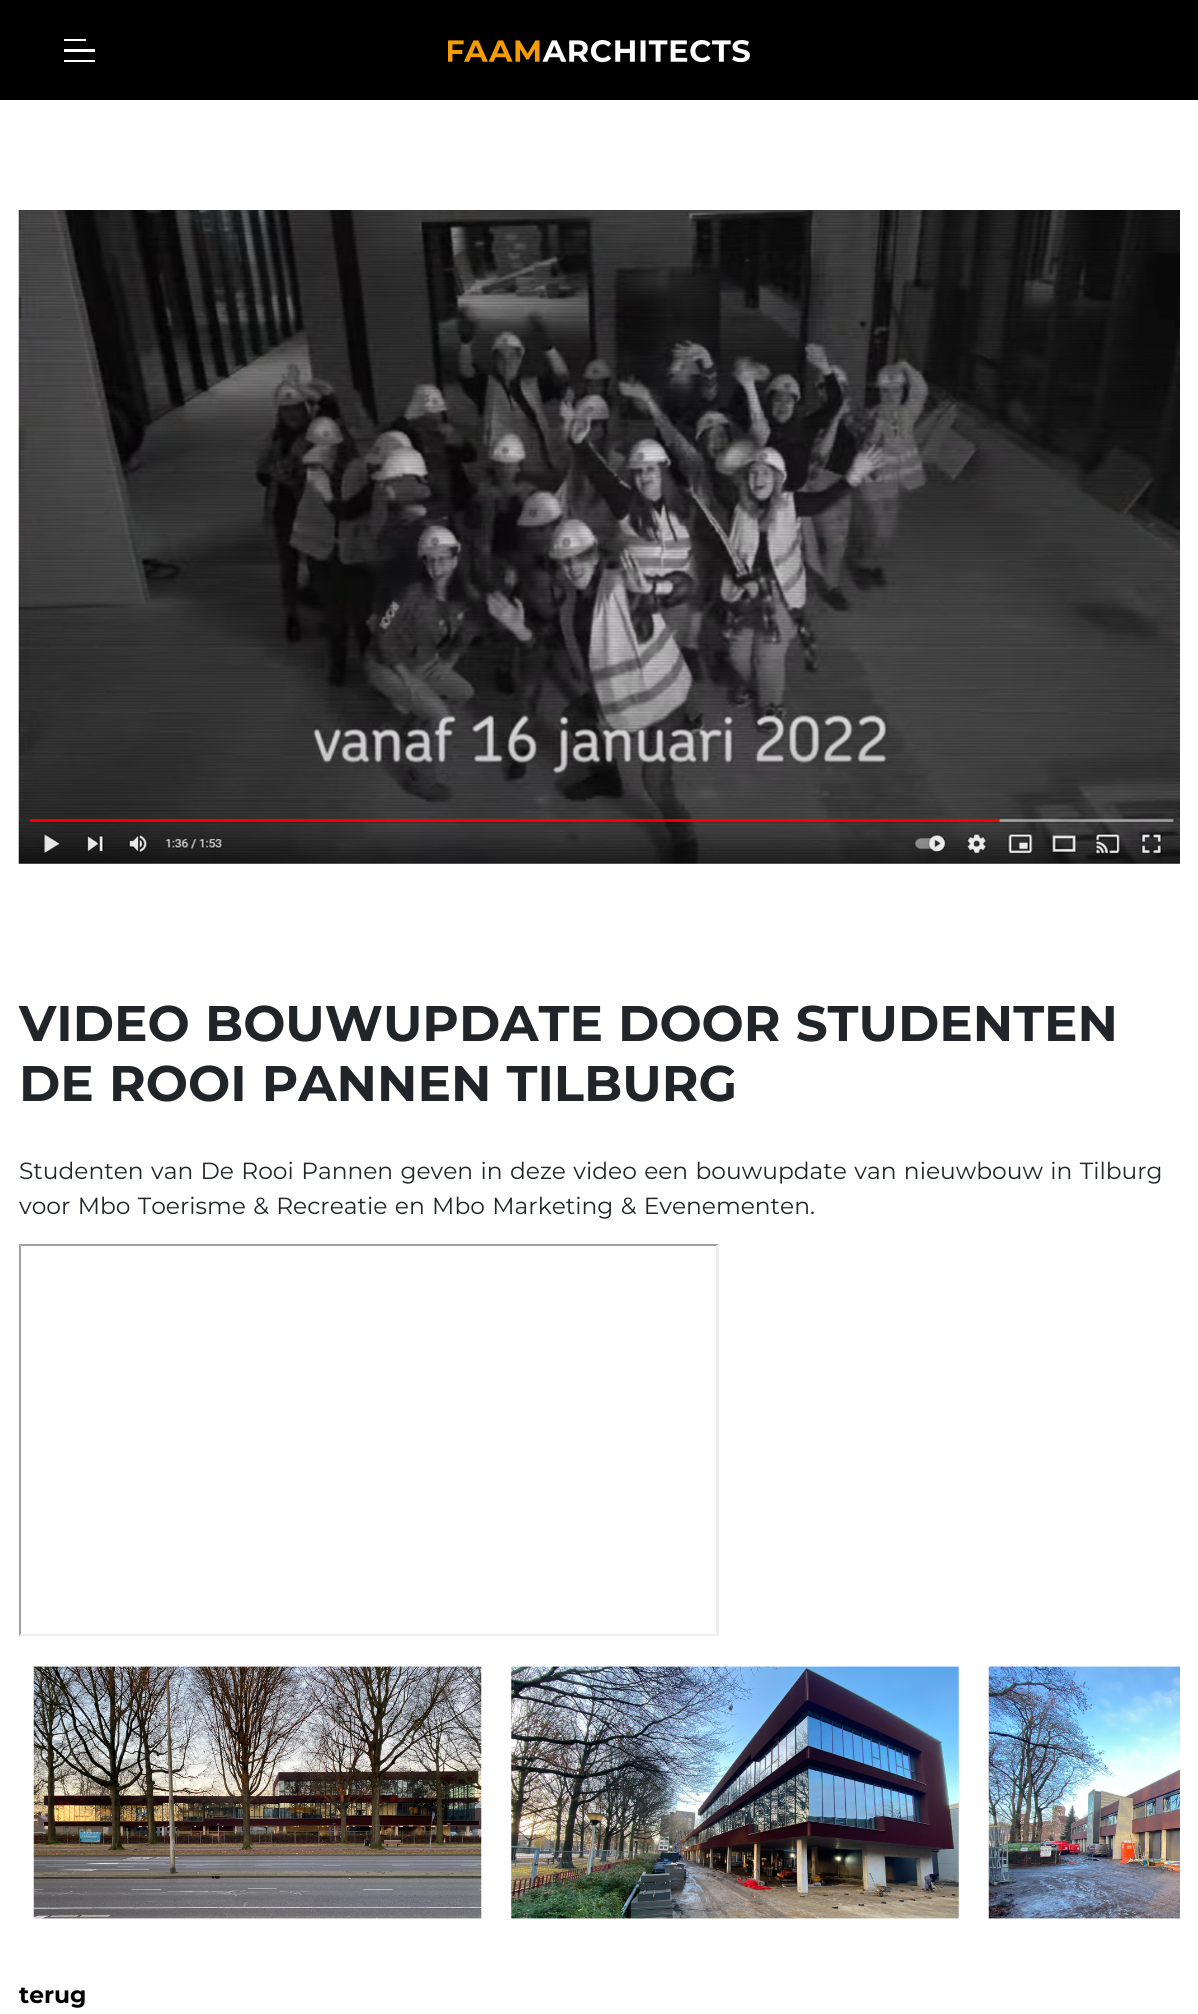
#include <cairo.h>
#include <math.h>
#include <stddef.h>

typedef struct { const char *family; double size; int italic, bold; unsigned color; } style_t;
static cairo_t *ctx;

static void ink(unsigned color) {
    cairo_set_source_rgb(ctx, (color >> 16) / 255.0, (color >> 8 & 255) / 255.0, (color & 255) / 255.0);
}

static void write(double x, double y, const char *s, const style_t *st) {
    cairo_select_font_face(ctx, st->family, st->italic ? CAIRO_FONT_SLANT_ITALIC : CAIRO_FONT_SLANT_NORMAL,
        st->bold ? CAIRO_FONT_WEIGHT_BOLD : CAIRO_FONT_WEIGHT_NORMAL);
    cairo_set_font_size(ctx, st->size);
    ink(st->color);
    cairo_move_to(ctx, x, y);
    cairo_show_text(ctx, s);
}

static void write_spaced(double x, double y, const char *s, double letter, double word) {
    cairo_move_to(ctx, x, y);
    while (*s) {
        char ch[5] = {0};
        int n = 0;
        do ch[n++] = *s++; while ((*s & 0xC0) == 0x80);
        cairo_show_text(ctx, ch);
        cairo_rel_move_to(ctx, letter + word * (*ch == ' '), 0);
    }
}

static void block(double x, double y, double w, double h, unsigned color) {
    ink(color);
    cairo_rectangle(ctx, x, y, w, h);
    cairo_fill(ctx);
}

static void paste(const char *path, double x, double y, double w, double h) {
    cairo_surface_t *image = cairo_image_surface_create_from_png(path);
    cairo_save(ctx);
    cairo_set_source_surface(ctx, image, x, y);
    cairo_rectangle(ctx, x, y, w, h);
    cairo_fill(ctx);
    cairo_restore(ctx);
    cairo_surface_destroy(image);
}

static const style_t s1 = {"Montserrat", 23.35, 0, 1, 0x000000};

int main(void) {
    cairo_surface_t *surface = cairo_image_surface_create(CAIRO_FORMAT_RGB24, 1198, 2014);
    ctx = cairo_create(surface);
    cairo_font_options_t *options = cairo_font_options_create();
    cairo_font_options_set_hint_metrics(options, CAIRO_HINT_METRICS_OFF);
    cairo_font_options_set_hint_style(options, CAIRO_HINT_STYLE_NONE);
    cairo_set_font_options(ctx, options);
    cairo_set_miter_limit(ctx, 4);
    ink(0x000000);
    cairo_paint(ctx);
    block(64, 39, 22, 2, 0xffffff);
    block(64, 49, 31, 3, 0xffffff);
    block(64, 60, 31, 2, 0xffffff);
    paste("pic1.png", 448, 40, 302, 23);
    block(0, 100, 1198, 1914, 0xffffff);
    paste("pic2.png", 18, 210, 1162, 654);
    cairo_select_font_face(ctx, "Montserrat", CAIRO_FONT_SLANT_NORMAL, CAIRO_FONT_WEIGHT_BOLD);
    cairo_set_font_size(ctx, 50);
    ink(0x212529);
    write_spaced(19, 1041, "VIDEO BOUWUPDATE DOOR STUDENTEN", 0, 1);
    write_spaced(19, 1101, "DE ROOI PANNEN TILBURG", 0, 1);
    cairo_select_font_face(ctx, "Montserrat", CAIRO_FONT_SLANT_NORMAL, CAIRO_FONT_WEIGHT_NORMAL);
    cairo_set_font_size(ctx, 23.35);
    write_spaced(19, 1179, "Studenten van De Rooi Pannen geven in deze video een bouwupdate van nieuwbouw in Tilburg", 0, 1.25);
    write_spaced(19, 1214, "voor Mbo Toerisme & Recreatie en Mbo Marketing & Evenementen.", 0, 1.25);
    ink(0x9f9f9f);
    cairo_new_path(ctx);
    cairo_move_to(ctx, 19, 1244);
    cairo_line_to(ctx, 719, 1244);
    cairo_line_to(ctx, 716, 1246);
    cairo_line_to(ctx, 21, 1246);
    cairo_close_path(ctx);
    cairo_fill(ctx);
    ink(0xeeeeee);
    cairo_new_path(ctx);
    cairo_move_to(ctx, 719, 1244);
    cairo_line_to(ctx, 719, 1636);
    cairo_line_to(ctx, 716, 1634);
    cairo_line_to(ctx, 716, 1246);
    cairo_close_path(ctx);
    cairo_fill(ctx);
    cairo_new_path(ctx);
    cairo_move_to(ctx, 719, 1636);
    cairo_line_to(ctx, 19, 1636);
    cairo_line_to(ctx, 21, 1634);
    cairo_line_to(ctx, 716, 1634);
    cairo_close_path(ctx);
    cairo_fill(ctx);
    ink(0x9f9f9f);
    cairo_new_path(ctx);
    cairo_move_to(ctx, 19, 1636);
    cairo_line_to(ctx, 19, 1244);
    cairo_line_to(ctx, 21, 1246);
    cairo_line_to(ctx, 21, 1634);
    cairo_close_path(ctx);
    cairo_fill(ctx);
    paste("pic3.png", 33, 1666, 449, 253);
    paste("pic4.png", 511, 1666, 448, 253);
    paste("pic5.png", 988, 1666, 192, 253);
    write(19, 2003, "terug", &s1);
    cairo_surface_write_to_png(surface, "screenshot.png");
    cairo_font_options_destroy(options);
    cairo_destroy(ctx);
    cairo_surface_destroy(surface);
    return 0;
}
